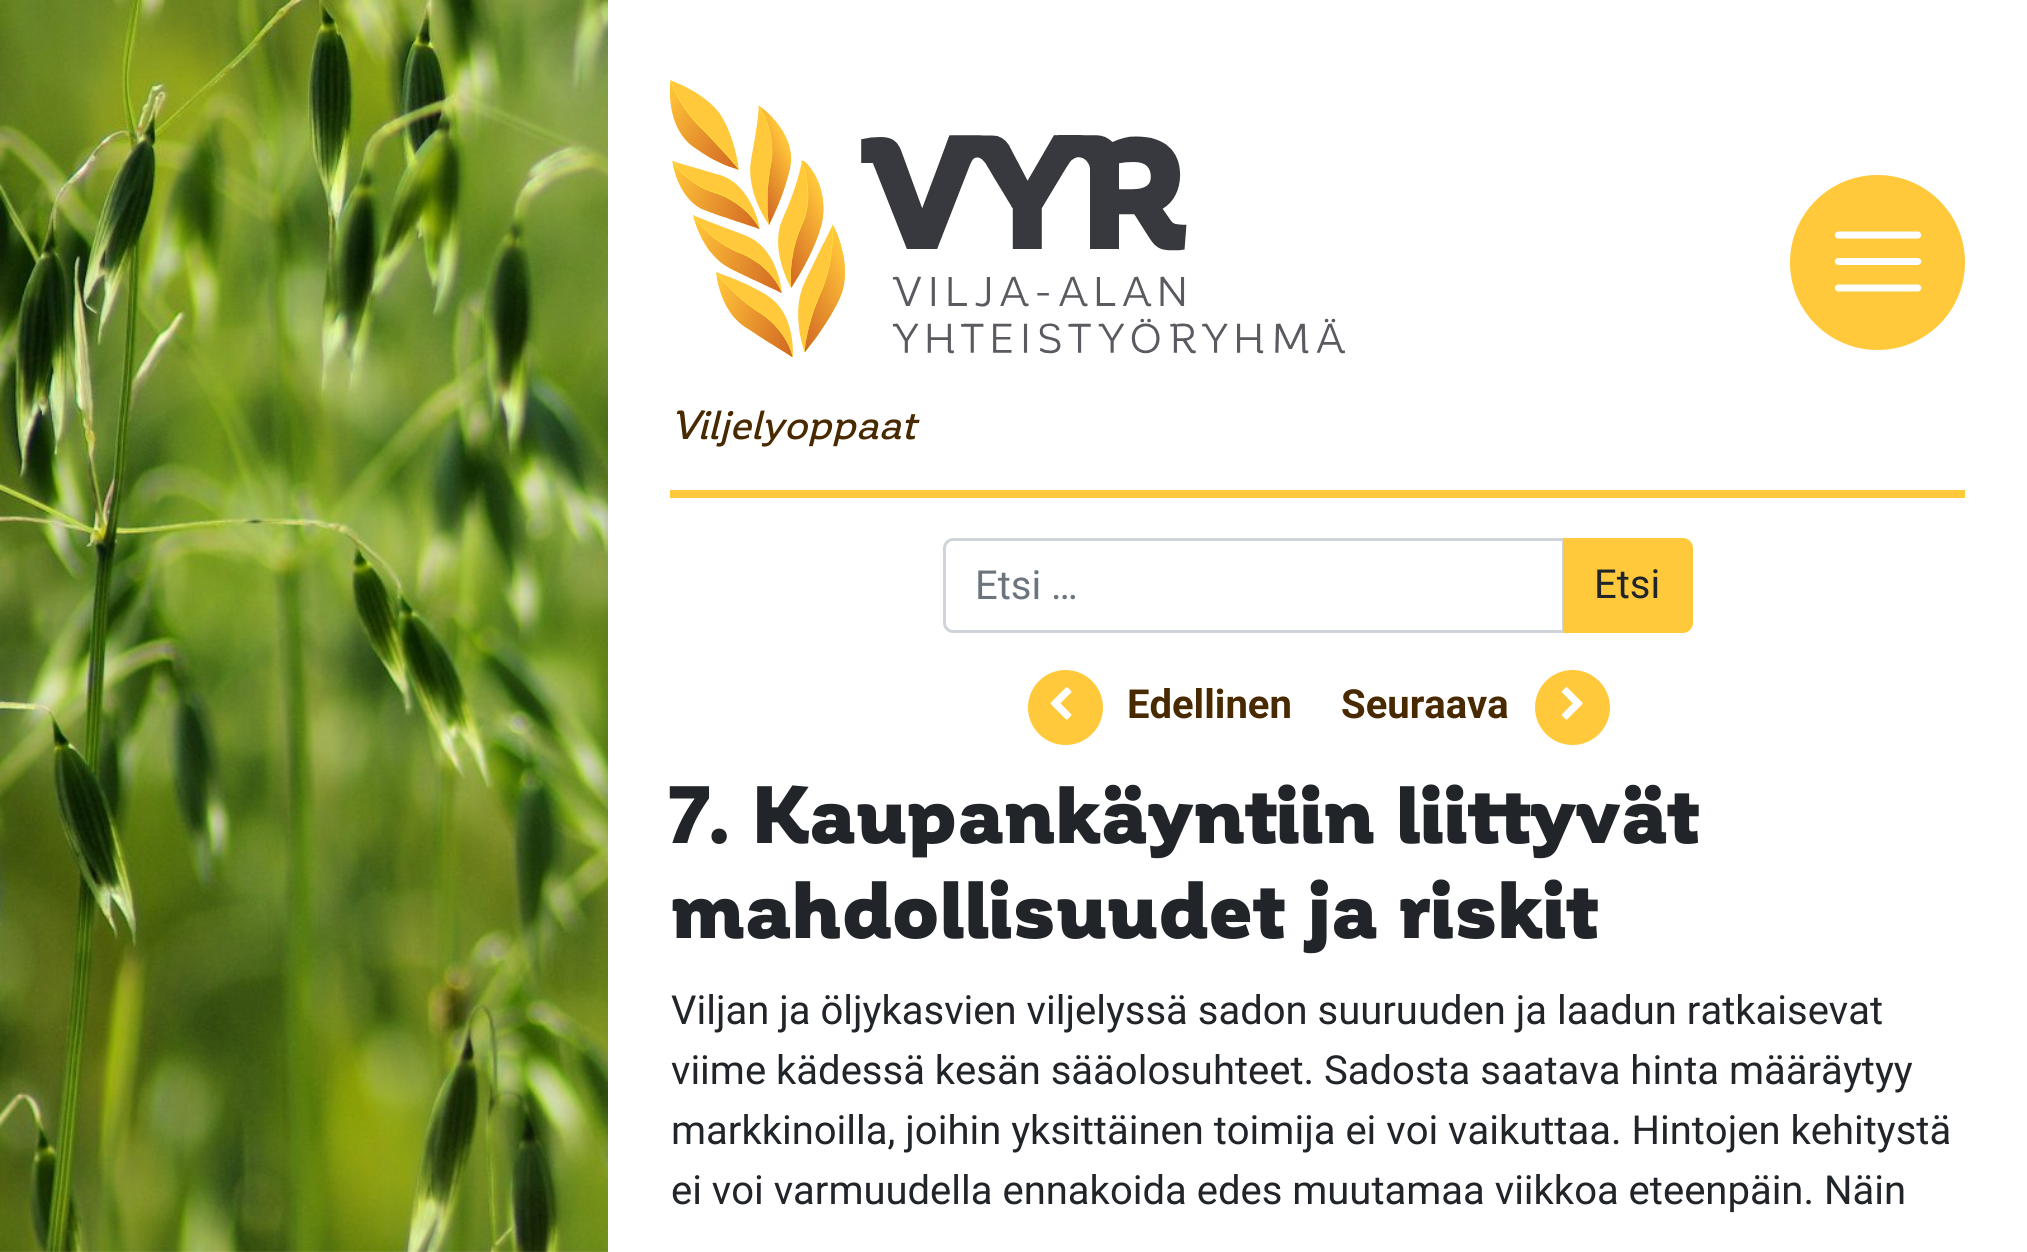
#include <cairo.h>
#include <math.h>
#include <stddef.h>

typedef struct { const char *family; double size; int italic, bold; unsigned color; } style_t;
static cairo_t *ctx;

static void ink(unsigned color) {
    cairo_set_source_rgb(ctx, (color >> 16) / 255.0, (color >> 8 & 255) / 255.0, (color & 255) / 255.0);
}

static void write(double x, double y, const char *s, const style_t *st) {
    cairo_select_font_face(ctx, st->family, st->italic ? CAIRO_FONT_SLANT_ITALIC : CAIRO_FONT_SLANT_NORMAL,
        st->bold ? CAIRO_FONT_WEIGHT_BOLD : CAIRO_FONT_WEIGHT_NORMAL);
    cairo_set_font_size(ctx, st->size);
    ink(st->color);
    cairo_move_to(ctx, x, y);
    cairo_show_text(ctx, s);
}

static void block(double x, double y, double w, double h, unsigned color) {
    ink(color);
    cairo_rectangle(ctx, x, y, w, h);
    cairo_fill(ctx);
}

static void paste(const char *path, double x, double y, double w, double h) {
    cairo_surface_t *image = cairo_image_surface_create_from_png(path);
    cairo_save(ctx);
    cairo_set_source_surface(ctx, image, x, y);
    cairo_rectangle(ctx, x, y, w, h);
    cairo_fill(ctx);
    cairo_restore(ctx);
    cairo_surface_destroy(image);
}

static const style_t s1 = {"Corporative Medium", 40, 1, 0, 0x482900};
static const style_t s2 = {"Roboto", 40, 0, 0, 0x6c757d};
static const style_t s3 = {"Roboto", 40, 0, 0, 0x212529};
static const style_t s4 = {"Roboto", 40, 0, 1, 0x482900};
static const style_t s5 = {"Corporative Black", 80, 0, 0, 0x212529};

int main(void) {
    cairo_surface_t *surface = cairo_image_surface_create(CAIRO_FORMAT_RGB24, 2027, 1252);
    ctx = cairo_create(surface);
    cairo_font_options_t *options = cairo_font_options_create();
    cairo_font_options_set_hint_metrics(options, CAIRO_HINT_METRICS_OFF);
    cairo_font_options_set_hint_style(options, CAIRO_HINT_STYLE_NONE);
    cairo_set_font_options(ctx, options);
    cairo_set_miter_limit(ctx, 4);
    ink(0xffffff);
    cairo_paint(ctx);
    paste("pic1.png", 0, 0, 608, 1252);
    ink(0xffc93b);
    cairo_arc(ctx, 1877.5, 262.5, 87.5, 0, 2 * M_PI);
    cairo_fill(ctx);
    paste("pic2.png", 1834, 231, 88, 61);
    paste("pic3.png", 670, 80, 675, 278);
    write(671, 439, "Viljelyoppaat", &s1);
    block(670, 490, 1295, 8, 0xffc93b);
    cairo_new_path(ctx);
    cairo_move_to(ctx, 953, 539.5);
    cairo_line_to(ctx, 1563.5, 539.5);
    cairo_line_to(ctx, 1563.5, 631.5);
    cairo_line_to(ctx, 953, 631.5);
    cairo_curve_to(ctx, 948.5, 631.5, 944.5, 627.5, 944.5, 623);
    cairo_line_to(ctx, 944.5, 548);
    cairo_curve_to(ctx, 944.5, 543.5, 948.5, 539.5, 953, 539.5);
    cairo_close_path(ctx);
    ink(0xced4da);
    cairo_set_line_width(ctx, 3);
    cairo_stroke(ctx);
    write(975, 599, "Etsi …", &s2);
    ink(0xffc93b);
    cairo_new_path(ctx);
    cairo_move_to(ctx, 1564.5, 539.5);
    cairo_line_to(ctx, 1683, 539.5);
    cairo_curve_to(ctx, 1687.5, 539.5, 1691.5, 543.5, 1691.5, 548);
    cairo_line_to(ctx, 1691.5, 623);
    cairo_curve_to(ctx, 1691.5, 627.5, 1687.5, 631.5, 1683, 631.5);
    cairo_line_to(ctx, 1564.5, 631.5);
    cairo_close_path(ctx);
    cairo_fill_preserve(ctx);
    cairo_stroke(ctx);
    write(1594, 598, "Etsi", &s3);
    ink(0xffc93b);
    cairo_new_path(ctx);
    cairo_arc(ctx, 1065.5, 707.5, 37.5, 0, 2 * M_PI);
    cairo_fill(ctx);
    paste("pic4.png", 1050, 687, 22, 33);
    write(1127, 718, "Edellinen", &s4);
    write(1341, 718, "Seuraava", &s4);
    ink(0xffc93b);
    cairo_new_path(ctx);
    cairo_arc(ctx, 1572.5, 707.5, 37.5, 0, 2 * M_PI);
    cairo_fill(ctx);
    paste("pic5.png", 1561, 687, 22, 33);
    write(671, 843, "7. Kaupankäyntiin liittyvät", &s5);
    write(671, 938, "mahdollisuudet ja riskit", &s5);
    write(671, 1024, "Viljan ja öljykasvien viljelyssä sadon suuruuden ja laadun ratkaisevat", &s3);
    write(671, 1084, "viime kädessä kesän sääolosuhteet. Sadosta saatava hinta määräytyy", &s3);
    write(671, 1144, "markkinoilla, joihin yksittäinen toimija ei voi vaikuttaa. Hintojen kehitystä", &s3);
    write(671, 1204, "ei voi varmuudella ennakoida edes muutamaa viikkoa eteenpäin. Näin", &s3);
    cairo_surface_write_to_png(surface, "screenshot.png");
    cairo_font_options_destroy(options);
    cairo_destroy(ctx);
    cairo_surface_destroy(surface);
    return 0;
}
